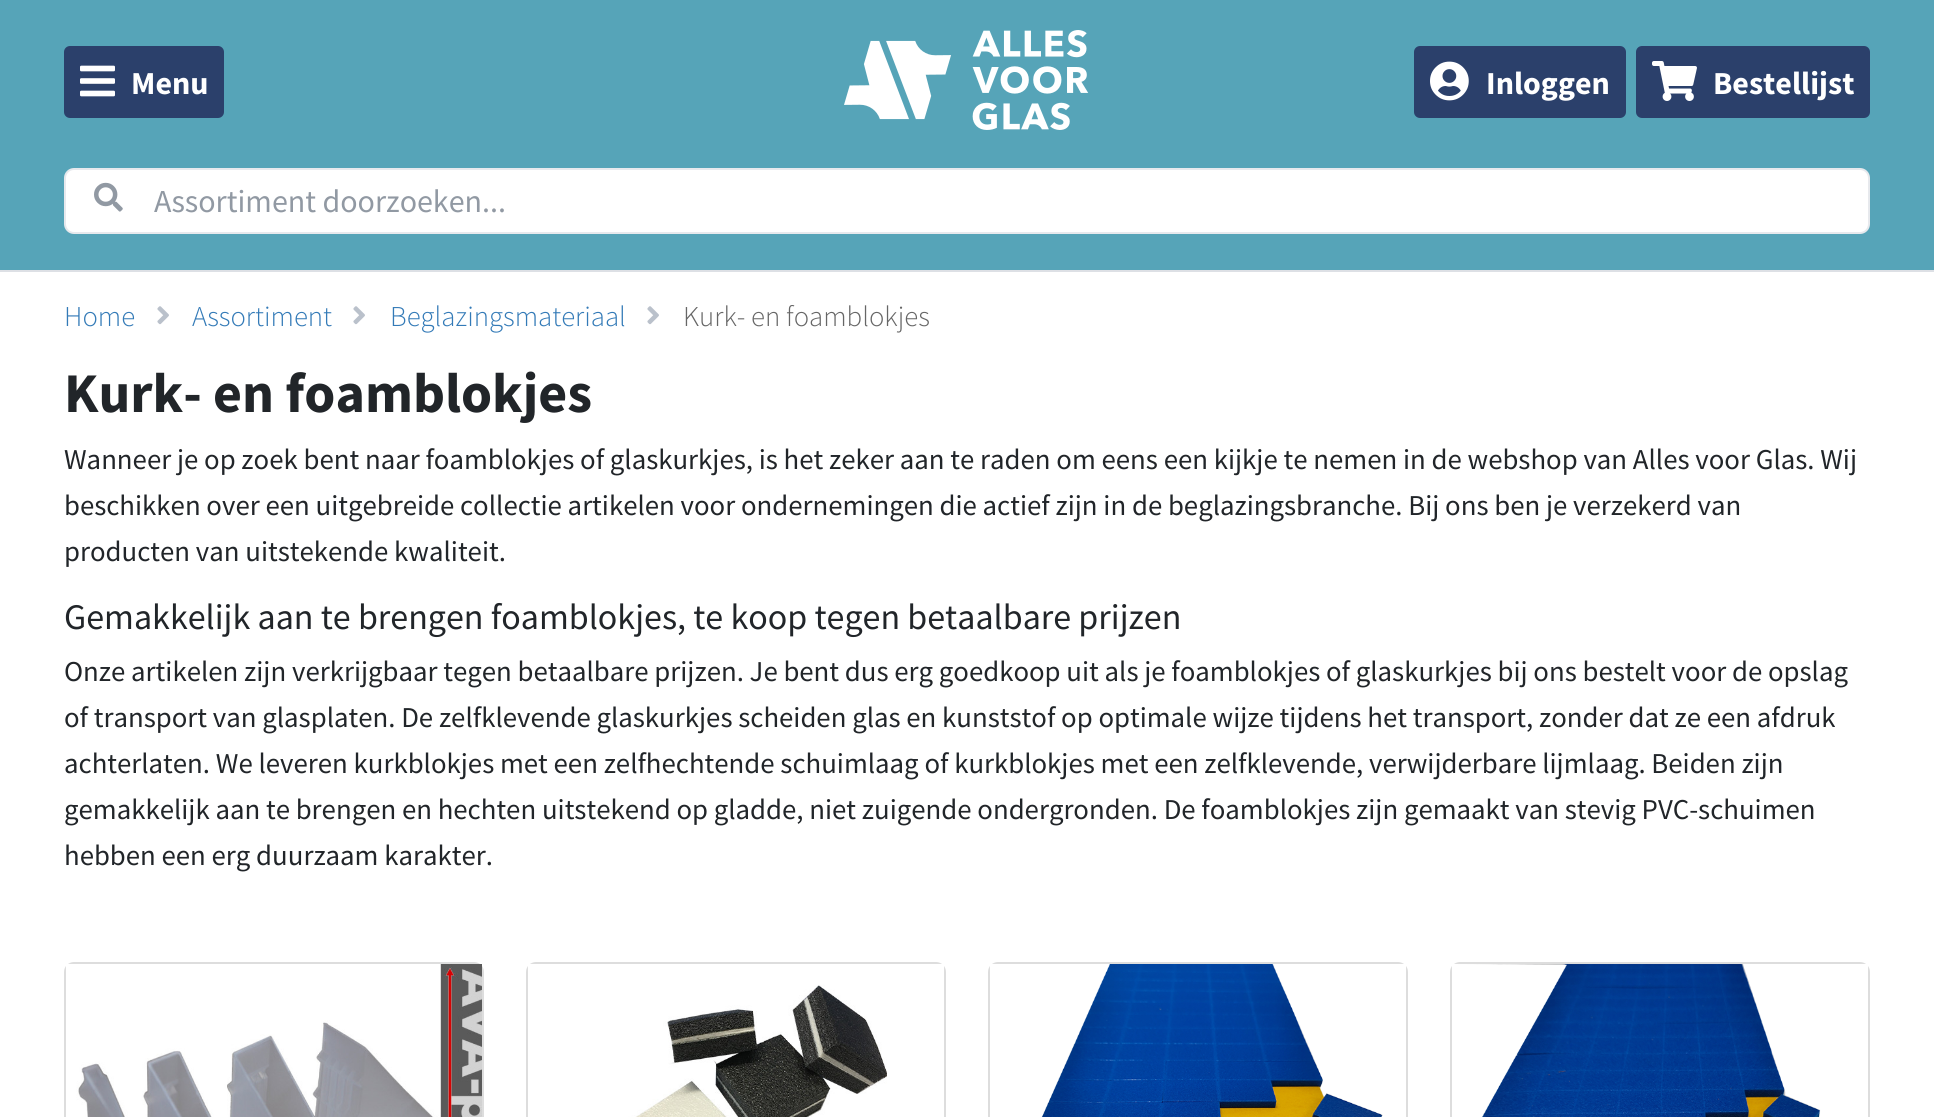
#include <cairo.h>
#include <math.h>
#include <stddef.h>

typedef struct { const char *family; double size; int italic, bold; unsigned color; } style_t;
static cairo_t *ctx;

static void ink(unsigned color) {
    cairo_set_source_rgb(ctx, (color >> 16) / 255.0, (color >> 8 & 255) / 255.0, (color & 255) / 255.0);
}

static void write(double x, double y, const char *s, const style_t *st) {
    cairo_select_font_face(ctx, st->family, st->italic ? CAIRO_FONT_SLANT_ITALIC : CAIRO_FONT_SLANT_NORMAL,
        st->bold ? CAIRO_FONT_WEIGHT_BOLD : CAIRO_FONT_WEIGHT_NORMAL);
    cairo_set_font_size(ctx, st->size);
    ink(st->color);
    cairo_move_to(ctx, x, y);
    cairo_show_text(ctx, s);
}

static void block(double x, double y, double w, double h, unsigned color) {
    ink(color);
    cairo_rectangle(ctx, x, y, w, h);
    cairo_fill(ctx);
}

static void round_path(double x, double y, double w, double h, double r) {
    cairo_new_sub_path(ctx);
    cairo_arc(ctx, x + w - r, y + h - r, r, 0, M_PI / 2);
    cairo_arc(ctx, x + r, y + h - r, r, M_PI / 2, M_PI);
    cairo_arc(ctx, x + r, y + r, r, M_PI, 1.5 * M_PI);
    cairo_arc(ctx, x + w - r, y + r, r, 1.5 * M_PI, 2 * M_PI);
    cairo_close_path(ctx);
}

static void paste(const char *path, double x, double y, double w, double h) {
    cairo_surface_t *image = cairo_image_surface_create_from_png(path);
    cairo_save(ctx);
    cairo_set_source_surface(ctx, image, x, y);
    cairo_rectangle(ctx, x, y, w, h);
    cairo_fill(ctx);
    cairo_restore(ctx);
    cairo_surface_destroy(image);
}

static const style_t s1 = {"Source Sans Pro", 32, 0, 1, 0xffffff};
static const style_t s2 = {"Source Sans Pro", 32, 0, 0, 0x9199a3};
static const style_t s3 = {"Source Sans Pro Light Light", 28.78, 0, 0, 0x337ab7};
static const style_t s4 = {"Source Sans Pro Light Light", 28.78, 0, 0, 0x666666};
static const style_t s5 = {"Source Sans Pro", 56, 0, 1, 0x212529};
static const style_t s6 = {"Source Sans Pro", 28.78, 0, 0, 0x212529};
static const style_t s7 = {"Source Sans Pro", 36, 0, 0, 0x212529};

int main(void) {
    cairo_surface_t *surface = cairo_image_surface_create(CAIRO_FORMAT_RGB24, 1934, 1117);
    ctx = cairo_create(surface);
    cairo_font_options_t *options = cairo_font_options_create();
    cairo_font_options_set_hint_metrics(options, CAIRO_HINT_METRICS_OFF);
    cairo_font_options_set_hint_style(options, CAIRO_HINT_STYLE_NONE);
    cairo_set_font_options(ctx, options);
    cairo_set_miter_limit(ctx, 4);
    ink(0xffffff);
    cairo_paint(ctx);
    block(0, 0, 1934, 270, 0x56a4b8);
    ink(0x2b406b);
    round_path(64, 46, 160, 72, 6);
    cairo_fill(ctx);
    paste("pic1.png", 80, 65, 35, 32);
    write(131, 94, "Menu", &s1);
    paste("pic2.png", 844, 30, 245, 100);
    ink(0x2b406b);
    round_path(1414, 46, 212, 72, 6);
    cairo_fill(ctx);
    paste("pic3.png", 1430, 61, 39, 40);
    write(1486, 94, "Inloggen", &s1);
    ink(0x2b406b);
    round_path(1636, 46, 234, 72, 6);
    cairo_fill(ctx);
    paste("pic4.png", 1652, 61, 45, 40);
    write(1713, 94, "Bestellijst", &s1);
    round_path(65, 169, 1804, 64, 9);
    cairo_fill_preserve(ctx);
    ink(0xe7e9ed);
    cairo_stroke(ctx);
    paste("pic5.png", 94, 182, 29, 30);
    write(154, 212, "Assortiment doorzoeken...", &s2);
    block(0, 270, 1934, 2, 0xdde0e5);
    write(64, 326, "Home", &s3);
    paste("pic6.png", 157, 306, 12, 19);
    write(192, 326, "Assortiment", &s3);
    paste("pic6.png", 353, 306, 12, 19);
    write(390, 326, "Beglazingsmateriaal", &s3);
    paste("pic6.png", 647, 306, 12, 19);
    write(683, 326, "Kurk- en foamblokjes", &s4);
    write(64, 412, "Kurk- en foamblokjes", &s5);
    write(64, 469, "Wanneer je op zoek bent naar foamblokjes of glaskurkjes, is het zeker aan te raden om eens een kijkje te nemen in de webshop van Alles voor Glas. Wij", &s6);
    write(64, 515, "beschikken over een uitgebreide collectie artikelen voor ondernemingen die actief zijn in de beglazingsbranche. Bij ons ben je verzekerd van", &s6);
    write(64, 561, "producten van uitstekende kwaliteit.", &s6);
    write(64, 629, "Gemakkelijk aan te brengen foamblokjes, te koop tegen betaalbare prijzen", &s7);
    write(64, 681, "Onze artikelen zijn verkrijgbaar tegen betaalbare prijzen. Je bent dus erg goedkoop uit als je foamblokjes of glaskurkjes bij ons bestelt voor de opslag", &s6);
    write(64, 727, "of transport van glasplaten. De zelfklevende glaskurkjes scheiden glas en kunststof op optimale wijze tijdens het transport, zonder dat ze een afdruk", &s6);
    write(64, 773, "achterlaten. We leveren kurkblokjes met een zelfhechtende schuimlaag of kurkblokjes met een zelfklevende, verwijderbare lijmlaag. Beiden zijn", &s6);
    write(64, 819, "gemakkelijk aan te brengen en hechten uitstekend op gladde, niet zuigende ondergronden. De foamblokjes zijn gemaakt van stevig PVC-schuimen", &s6);
    write(64, 865, "hebben een erg duurzaam karakter.", &s6);
    round_path(65, 963, 418, 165, 9);
    ink(0xdddddd);
    cairo_stroke(ctx);
    paste("pic7.png", 66, 964, 416, 153);
    round_path(527, 963, 418, 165, 9);
    cairo_stroke(ctx);
    paste("pic8.png", 528, 964, 416, 153);
    round_path(989, 963, 418, 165, 9);
    cairo_stroke(ctx);
    paste("pic9.png", 990, 964, 416, 153);
    round_path(1451, 963, 418, 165, 9);
    cairo_stroke(ctx);
    paste("pic10.png", 1452, 964, 416, 153);
    cairo_surface_write_to_png(surface, "screenshot.png");
    cairo_font_options_destroy(options);
    cairo_destroy(ctx);
    cairo_surface_destroy(surface);
    return 0;
}
